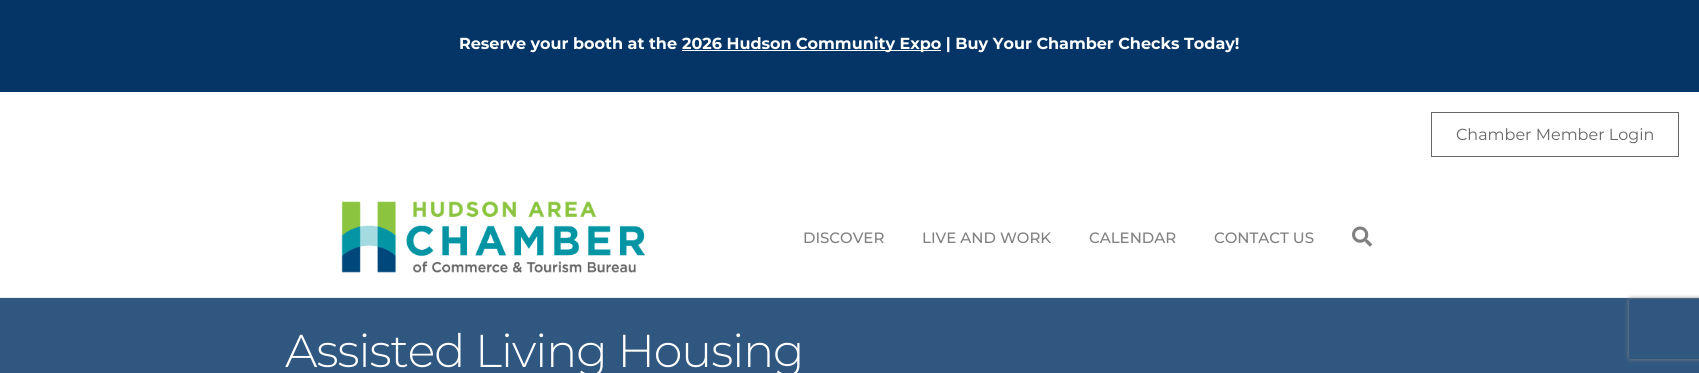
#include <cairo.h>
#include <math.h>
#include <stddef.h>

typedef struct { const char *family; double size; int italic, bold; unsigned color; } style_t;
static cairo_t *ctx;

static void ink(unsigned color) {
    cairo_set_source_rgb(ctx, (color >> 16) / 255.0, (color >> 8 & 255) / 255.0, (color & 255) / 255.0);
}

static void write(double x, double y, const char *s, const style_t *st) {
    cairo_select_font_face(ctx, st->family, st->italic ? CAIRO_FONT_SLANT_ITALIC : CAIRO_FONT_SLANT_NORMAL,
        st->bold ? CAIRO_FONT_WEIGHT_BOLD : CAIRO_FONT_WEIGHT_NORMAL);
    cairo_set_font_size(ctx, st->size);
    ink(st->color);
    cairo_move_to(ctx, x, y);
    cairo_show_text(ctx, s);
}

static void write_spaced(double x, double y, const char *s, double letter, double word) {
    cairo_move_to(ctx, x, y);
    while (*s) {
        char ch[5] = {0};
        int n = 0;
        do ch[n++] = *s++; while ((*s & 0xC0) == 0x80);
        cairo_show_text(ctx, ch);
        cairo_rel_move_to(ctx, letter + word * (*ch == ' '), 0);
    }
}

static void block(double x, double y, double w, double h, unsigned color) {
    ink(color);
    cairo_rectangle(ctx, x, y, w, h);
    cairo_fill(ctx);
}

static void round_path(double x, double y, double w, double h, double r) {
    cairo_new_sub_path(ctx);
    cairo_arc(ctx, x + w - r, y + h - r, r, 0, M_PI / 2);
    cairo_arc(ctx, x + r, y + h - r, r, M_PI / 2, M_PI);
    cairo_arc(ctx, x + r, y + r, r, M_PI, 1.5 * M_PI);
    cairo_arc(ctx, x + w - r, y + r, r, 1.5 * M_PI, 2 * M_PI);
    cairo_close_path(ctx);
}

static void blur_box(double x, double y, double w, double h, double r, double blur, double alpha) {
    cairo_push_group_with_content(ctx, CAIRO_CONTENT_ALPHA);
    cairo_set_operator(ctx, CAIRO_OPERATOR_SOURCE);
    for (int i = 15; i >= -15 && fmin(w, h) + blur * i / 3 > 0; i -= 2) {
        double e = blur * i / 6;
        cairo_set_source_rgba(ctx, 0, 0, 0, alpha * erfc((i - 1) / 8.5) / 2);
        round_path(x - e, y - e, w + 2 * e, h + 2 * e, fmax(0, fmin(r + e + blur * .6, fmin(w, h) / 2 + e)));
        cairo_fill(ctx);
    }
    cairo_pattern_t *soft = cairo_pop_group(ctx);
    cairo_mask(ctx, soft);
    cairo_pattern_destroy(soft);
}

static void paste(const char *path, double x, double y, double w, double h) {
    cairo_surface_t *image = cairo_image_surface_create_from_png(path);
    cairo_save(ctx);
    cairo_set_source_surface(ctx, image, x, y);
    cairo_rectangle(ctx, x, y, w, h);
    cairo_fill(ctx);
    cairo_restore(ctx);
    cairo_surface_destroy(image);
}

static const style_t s1 = {"Montserrat", 16, 0, 1, 0xffffff};
static const style_t s2 = {"Montserrat", 16, 0, 0, 0x666666};
static const style_t s3 = {"Montserrat Medium", 15, 0, 0, 0x808080};

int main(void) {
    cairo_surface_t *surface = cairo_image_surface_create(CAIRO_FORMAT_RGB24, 1699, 373);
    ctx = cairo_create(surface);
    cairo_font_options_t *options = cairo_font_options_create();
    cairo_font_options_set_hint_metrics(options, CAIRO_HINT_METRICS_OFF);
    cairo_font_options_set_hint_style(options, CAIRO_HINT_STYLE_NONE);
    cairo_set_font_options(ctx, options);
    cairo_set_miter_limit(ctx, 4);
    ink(0xffffff);
    cairo_paint(ctx);
    block(0, 0, 1699, 92, 0x043566);
    write(459, 49, "Reserve your booth at the", &s1);
    block(682, 50, 259, 1, 0xffffff);
    write(682, 49, "2026 Hudson Community Expo | Buy Your Chamber Checks Today!", &s1);
    cairo_rectangle(ctx, 1431.5, 112.5, 247, 44);
    ink(0x666666);
    cairo_set_line_width(ctx, 1);
    cairo_stroke(ctx);
    write(1456, 140, "Chamber Member Login", &s2);
    block(0, 297, 1699, 1, 0xeeeeee);
    paste("pic1.png", 341, 201, 305, 72);
    write(803, 243, "DISCOVER", &s3);
    write(922, 243, "LIVE AND WORK", &s3);
    write(1089, 243, "CALENDAR", &s3);
    write(1214, 243, "CONTACT US", &s3);
    paste("pic2.png", 1352, 226, 20, 21);
    block(0, 298, 1699, 75, 0x2f5780);
    cairo_select_font_face(ctx, "Montserrat Light", CAIRO_FONT_SLANT_NORMAL, CAIRO_FONT_WEIGHT_NORMAL);
    cairo_set_font_size(ctx, 46);
    ink(0xffffff);
    write_spaced(285, 367, "Assisted Living Housing", -1, 0);
    cairo_save(ctx);
    cairo_set_fill_rule(ctx, CAIRO_FILL_RULE_EVEN_ODD);
    cairo_new_path(ctx);
    cairo_move_to(ctx, 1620, 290);
    cairo_line_to(ctx, 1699, 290);
    cairo_line_to(ctx, 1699, 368);
    cairo_line_to(ctx, 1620, 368);
    cairo_close_path(ctx);
    cairo_move_to(ctx, 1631, 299);
    cairo_line_to(ctx, 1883, 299);
    cairo_curve_to(ctx, 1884, 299, 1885, 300, 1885, 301);
    cairo_line_to(ctx, 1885, 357);
    cairo_curve_to(ctx, 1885, 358, 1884, 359, 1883, 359);
    cairo_line_to(ctx, 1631, 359);
    cairo_curve_to(ctx, 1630, 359, 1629, 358, 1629, 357);
    cairo_line_to(ctx, 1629, 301);
    cairo_curve_to(ctx, 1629, 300, 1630, 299, 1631, 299);
    cairo_close_path(ctx);
    cairo_clip(ctx);
    ink(0x808080);
    blur_box(1629, 299, 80, 60, 2, 2.5, 1);
    cairo_restore(ctx);
    cairo_surface_write_to_png(surface, "screenshot.png");
    cairo_font_options_destroy(options);
    cairo_destroy(ctx);
    cairo_surface_destroy(surface);
    return 0;
}
